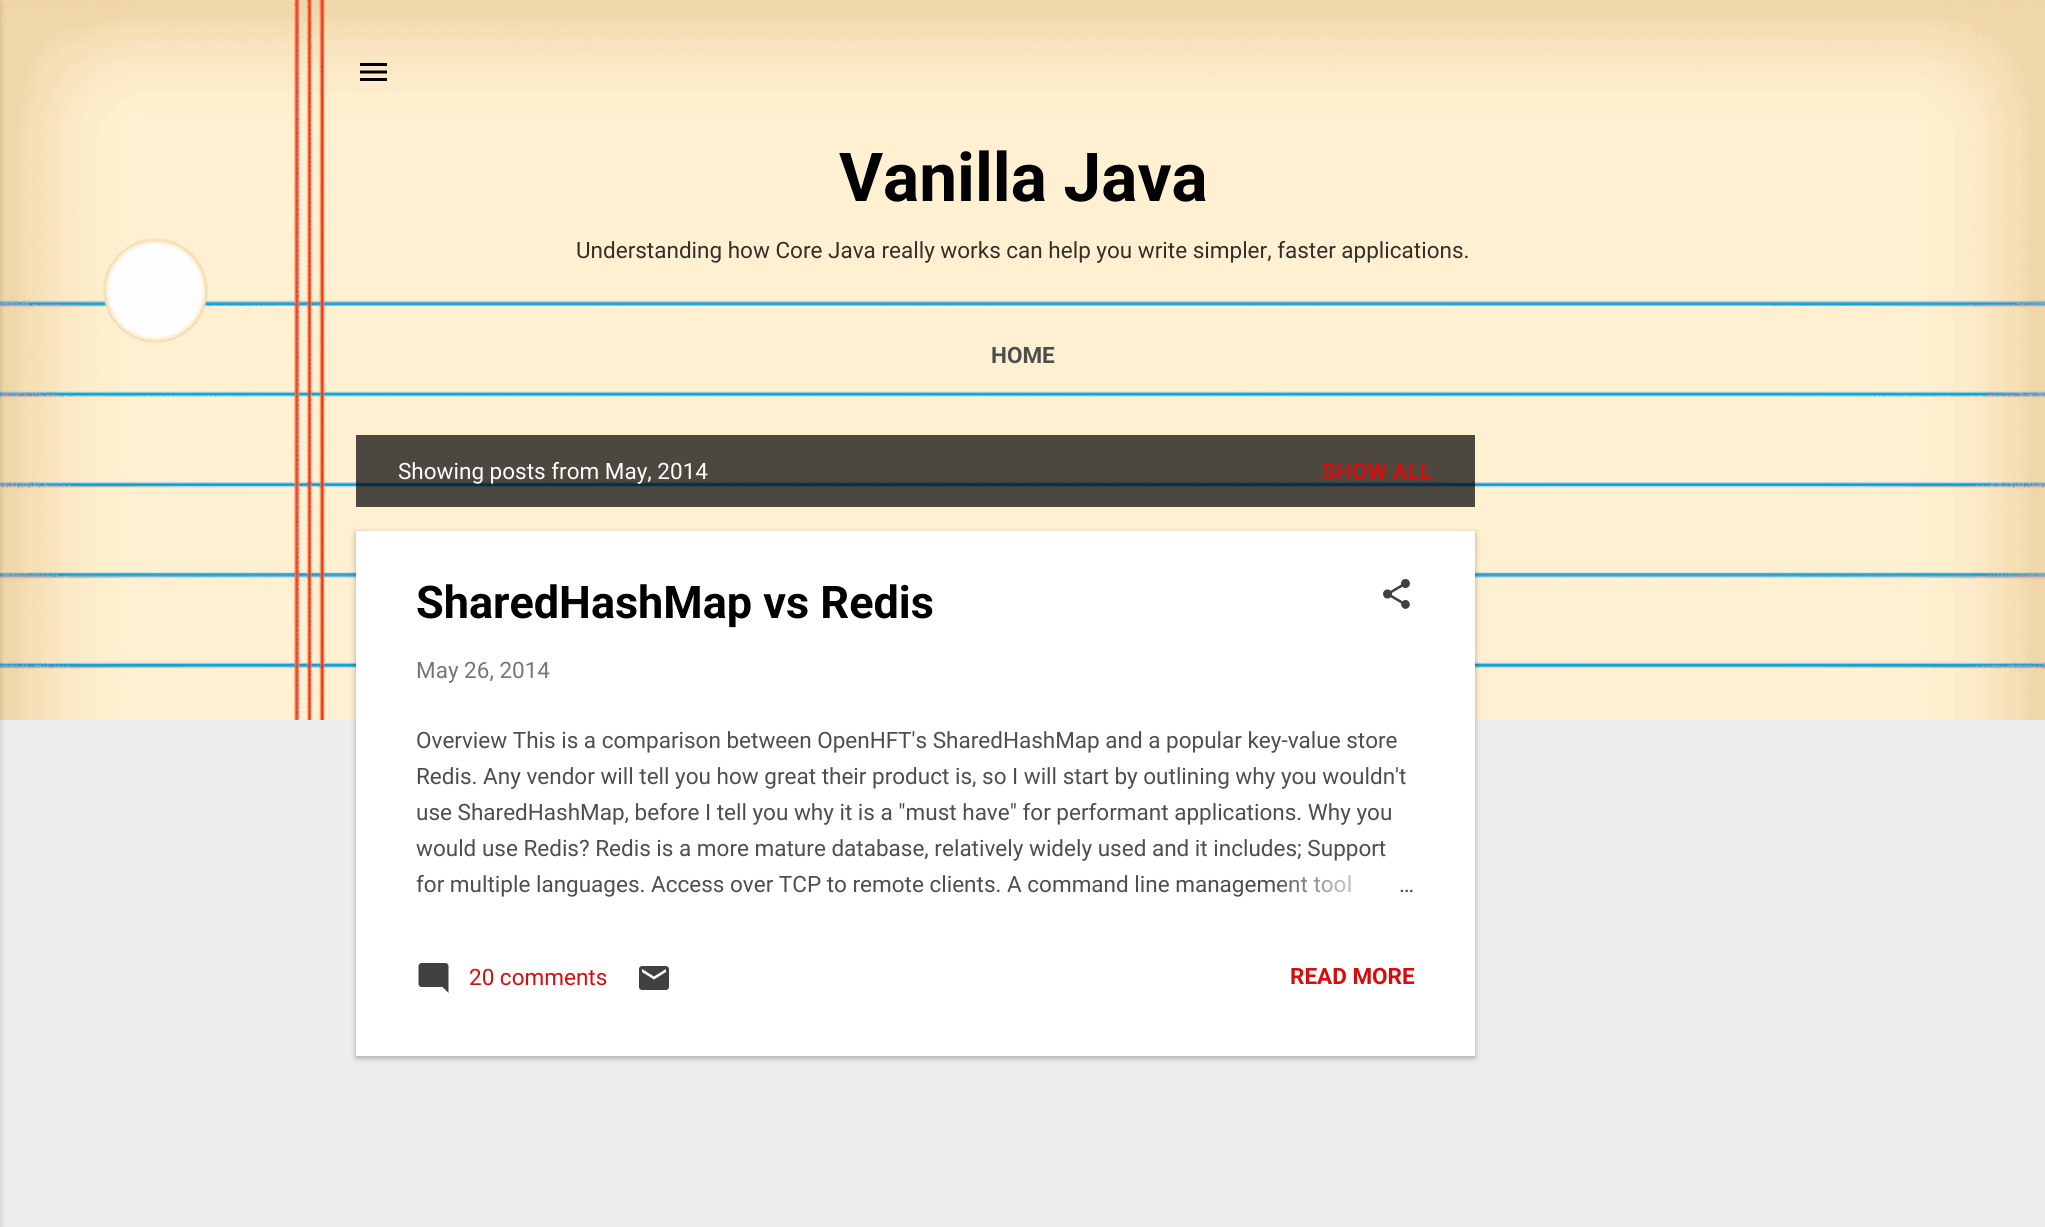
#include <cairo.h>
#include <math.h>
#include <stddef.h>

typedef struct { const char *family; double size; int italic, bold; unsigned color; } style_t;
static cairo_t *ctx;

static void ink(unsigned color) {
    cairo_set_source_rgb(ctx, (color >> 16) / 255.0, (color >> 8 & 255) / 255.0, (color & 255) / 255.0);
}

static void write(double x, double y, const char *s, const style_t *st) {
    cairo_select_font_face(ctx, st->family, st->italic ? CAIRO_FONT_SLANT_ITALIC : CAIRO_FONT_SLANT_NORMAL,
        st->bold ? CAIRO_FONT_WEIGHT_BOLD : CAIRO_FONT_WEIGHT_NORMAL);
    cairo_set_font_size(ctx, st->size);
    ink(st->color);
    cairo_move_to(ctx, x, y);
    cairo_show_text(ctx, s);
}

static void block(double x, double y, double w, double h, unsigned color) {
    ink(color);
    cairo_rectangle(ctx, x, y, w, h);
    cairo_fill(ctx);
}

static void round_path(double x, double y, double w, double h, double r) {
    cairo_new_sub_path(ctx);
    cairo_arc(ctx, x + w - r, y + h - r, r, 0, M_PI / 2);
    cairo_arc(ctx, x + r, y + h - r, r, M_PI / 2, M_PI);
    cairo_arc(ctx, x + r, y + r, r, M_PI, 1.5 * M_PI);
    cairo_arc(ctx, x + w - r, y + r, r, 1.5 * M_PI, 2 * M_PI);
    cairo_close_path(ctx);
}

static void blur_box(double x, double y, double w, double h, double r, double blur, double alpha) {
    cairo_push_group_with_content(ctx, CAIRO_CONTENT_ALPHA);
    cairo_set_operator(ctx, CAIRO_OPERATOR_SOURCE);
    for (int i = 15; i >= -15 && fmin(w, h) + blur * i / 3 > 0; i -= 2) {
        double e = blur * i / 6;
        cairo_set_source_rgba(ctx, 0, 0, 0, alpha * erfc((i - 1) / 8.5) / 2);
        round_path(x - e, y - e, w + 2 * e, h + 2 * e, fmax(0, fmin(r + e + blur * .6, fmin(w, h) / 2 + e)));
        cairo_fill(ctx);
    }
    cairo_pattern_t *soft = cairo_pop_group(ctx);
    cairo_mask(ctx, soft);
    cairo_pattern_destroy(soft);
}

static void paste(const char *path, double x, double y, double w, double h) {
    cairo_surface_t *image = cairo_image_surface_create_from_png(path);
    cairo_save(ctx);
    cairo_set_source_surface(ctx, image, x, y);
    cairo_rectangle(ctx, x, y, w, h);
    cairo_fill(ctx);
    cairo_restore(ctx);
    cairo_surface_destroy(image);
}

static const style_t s1 = {"Roboto", 67.5, 0, 1, 0x000000};
static const style_t s2 = {"Roboto", 22.5, 0, 0, 0x33302a};
static const style_t s3 = {"Roboto", 22.5, 0, 1, 0x4e4e4e};
static const style_t s4 = {"Roboto", 22.5, 0, 0, 0xffffff};
static const style_t s5 = {"Roboto", 22.5, 0, 1, 0xd90c0c};
static const style_t s6 = {"Roboto", 45, 0, 1, 0x000000};
static const style_t s7 = {"Roboto", 22.5, 0, 0, 0x767676};
static const style_t s8 = {"Roboto", 22.5, 0, 0, 0x4e4e4e};
static const style_t s9 = {"Roboto", 22.5, 0, 0, 0xd90c0c};

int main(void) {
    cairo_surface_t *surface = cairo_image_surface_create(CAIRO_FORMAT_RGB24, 2045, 1227);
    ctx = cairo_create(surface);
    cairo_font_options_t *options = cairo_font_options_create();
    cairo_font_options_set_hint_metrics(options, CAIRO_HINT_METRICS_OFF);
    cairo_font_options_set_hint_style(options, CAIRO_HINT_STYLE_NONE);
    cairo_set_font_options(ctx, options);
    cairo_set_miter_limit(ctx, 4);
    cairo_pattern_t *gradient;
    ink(0xededed);
    cairo_paint(ctx);
    paste("pic1.png", 0, 0, 2045, 720);
    ink(0x000000);
    blur_box(-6, 2, 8, 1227, 0, 2, 0.1);
    paste("pic2.png", 360, 63, 27, 18);
    write(839, 201, "Vanilla Java", &s1);
    write(576, 258, "Understanding how Core Java really works can help you write simpler, faster applications.", &s2);
    write(991, 363, "HOME", &s3);
    cairo_set_source_rgba(ctx, 0, 0, 0, 0.7);
    cairo_rectangle(ctx, 356, 435, 1119, 72);
    cairo_fill(ctx);
    write(398, 479, "Showing posts from May, 2014", &s4);
    write(1322, 479, "SHOW ALL", &s5);
    ink(0x000000);
    blur_box(356, 533, 1119, 525, 0, 3, 0.3);
    block(356, 531, 1119, 525, 0xffffff);
    write(416, 618, "SharedHashMap vs Redis", &s6);
    paste("pic3.png", 1383, 579, 27, 30);
    write(416, 678, "May 26, 2014", &s7);
    write(416, 748, "Overview This is a comparison between OpenHFT's SharedHashMap and a popular key-value store", &s8);
    write(416, 784, "Redis. Any vendor will tell you how great their product is, so I will start by outlining why you wouldn't", &s8);
    write(416, 820, "use SharedHashMap, before I tell you why it is a \"must have\" for performant applications. Why you", &s8);
    write(416, 856, "would use Redis? Redis is a more mature database, relatively widely used and it includes; Support", &s8);
    write(416, 892, "for multiple languages. Access over TCP to remote clients. A command line management tool", &s8);
    gradient = cairo_pattern_create_linear(1415, 885, 1271, 885);
    cairo_pattern_add_color_stop_rgba(gradient, 0, 1, 1, 1, 1);
    cairo_pattern_add_color_stop_rgba(gradient, 0.2, 1, 1, 1, 1);
    cairo_pattern_add_color_stop_rgba(gradient, 1, 1, 1, 1, 0);
    cairo_set_source(ctx, gradient);
    cairo_pattern_destroy(gradient);
    cairo_rectangle(ctx, 1273, 875, 77, 18);
    cairo_fill(ctx);
    write(1399, 892, "…", &s8);
    paste("pic4.png", 418, 963, 31, 30);
    write(469, 985, "20 comments", &s9);
    paste("pic5.png", 639, 966, 30, 24);
    write(1290, 984, "READ MORE", &s5);
    cairo_surface_write_to_png(surface, "screenshot.png");
    cairo_font_options_destroy(options);
    cairo_destroy(ctx);
    cairo_surface_destroy(surface);
    return 0;
}
